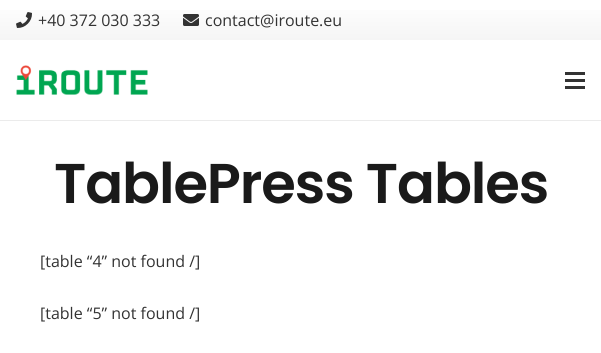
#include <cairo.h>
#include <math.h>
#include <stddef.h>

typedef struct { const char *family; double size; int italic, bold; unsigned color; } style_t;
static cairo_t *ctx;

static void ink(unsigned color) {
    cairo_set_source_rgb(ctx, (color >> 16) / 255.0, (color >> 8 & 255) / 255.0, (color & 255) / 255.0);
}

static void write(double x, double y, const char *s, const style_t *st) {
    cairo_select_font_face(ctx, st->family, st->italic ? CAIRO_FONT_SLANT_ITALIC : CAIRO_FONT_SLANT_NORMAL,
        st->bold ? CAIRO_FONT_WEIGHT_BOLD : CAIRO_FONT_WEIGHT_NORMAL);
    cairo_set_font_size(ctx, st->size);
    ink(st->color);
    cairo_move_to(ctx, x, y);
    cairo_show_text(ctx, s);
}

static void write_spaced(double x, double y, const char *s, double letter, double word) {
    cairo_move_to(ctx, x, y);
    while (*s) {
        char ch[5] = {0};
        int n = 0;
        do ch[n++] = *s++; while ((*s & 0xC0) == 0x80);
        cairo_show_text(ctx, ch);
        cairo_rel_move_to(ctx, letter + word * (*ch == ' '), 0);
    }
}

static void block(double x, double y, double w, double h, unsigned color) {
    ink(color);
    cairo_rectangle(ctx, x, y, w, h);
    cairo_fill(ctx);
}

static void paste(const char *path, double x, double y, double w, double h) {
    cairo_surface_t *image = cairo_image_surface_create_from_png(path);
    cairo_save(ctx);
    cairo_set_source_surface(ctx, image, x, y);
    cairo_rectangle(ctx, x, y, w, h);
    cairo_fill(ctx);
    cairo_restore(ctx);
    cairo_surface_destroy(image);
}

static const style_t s1 = {"Open Sans", 16, 0, 0, 0x333333};

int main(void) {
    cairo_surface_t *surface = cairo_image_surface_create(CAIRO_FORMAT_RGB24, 601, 353);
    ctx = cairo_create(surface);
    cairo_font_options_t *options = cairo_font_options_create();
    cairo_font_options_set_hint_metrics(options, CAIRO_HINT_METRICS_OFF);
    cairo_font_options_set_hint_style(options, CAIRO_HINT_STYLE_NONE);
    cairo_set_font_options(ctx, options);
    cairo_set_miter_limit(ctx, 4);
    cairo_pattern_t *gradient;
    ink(0xffffff);
    cairo_paint(ctx);
    gradient = cairo_pattern_create_linear(301, 40, 301, 0);
    cairo_pattern_add_color_stop_rgba(gradient, 0, 0.961, 0.961, 0.961, 1);
    cairo_pattern_add_color_stop_rgba(gradient, 1, 1, 1, 1, 1);
    cairo_set_source(ctx, gradient);
    cairo_pattern_destroy(gradient);
    cairo_rectangle(ctx, 0, 10, 601, 30);
    cairo_fill(ctx);
    paste("pic1.png", 16, 12, 16, 16);
    write(38, 26, "+40 372 030 333", &s1);
    paste("pic2.png", 183, 14, 16, 12);
    write(205, 26, "contact@iroute.eu", &s1);
    block(0, 120, 601, 1, 0xebebeb);
    paste("pic3.png", 16, 65, 132, 30);
    block(565, 79, 20, 3, 0x333333);
    block(565, 72, 20, 3, 0x333333);
    block(565, 86, 20, 3, 0x333333);
    cairo_select_font_face(ctx, "Poppins SemiBold", CAIRO_FONT_SLANT_NORMAL, CAIRO_FONT_WEIGHT_NORMAL);
    cairo_set_font_size(ctx, 56);
    ink(0x1a1a1a);
    write_spaced(54, 203, "TablePress Tables", -1.1, 0);
    write(40, 267, "[table “4” not found /]", &s1);
    write(40, 319, "[table “5” not found /]", &s1);
    cairo_surface_write_to_png(surface, "screenshot.png");
    cairo_font_options_destroy(options);
    cairo_destroy(ctx);
    cairo_surface_destroy(surface);
    return 0;
}
